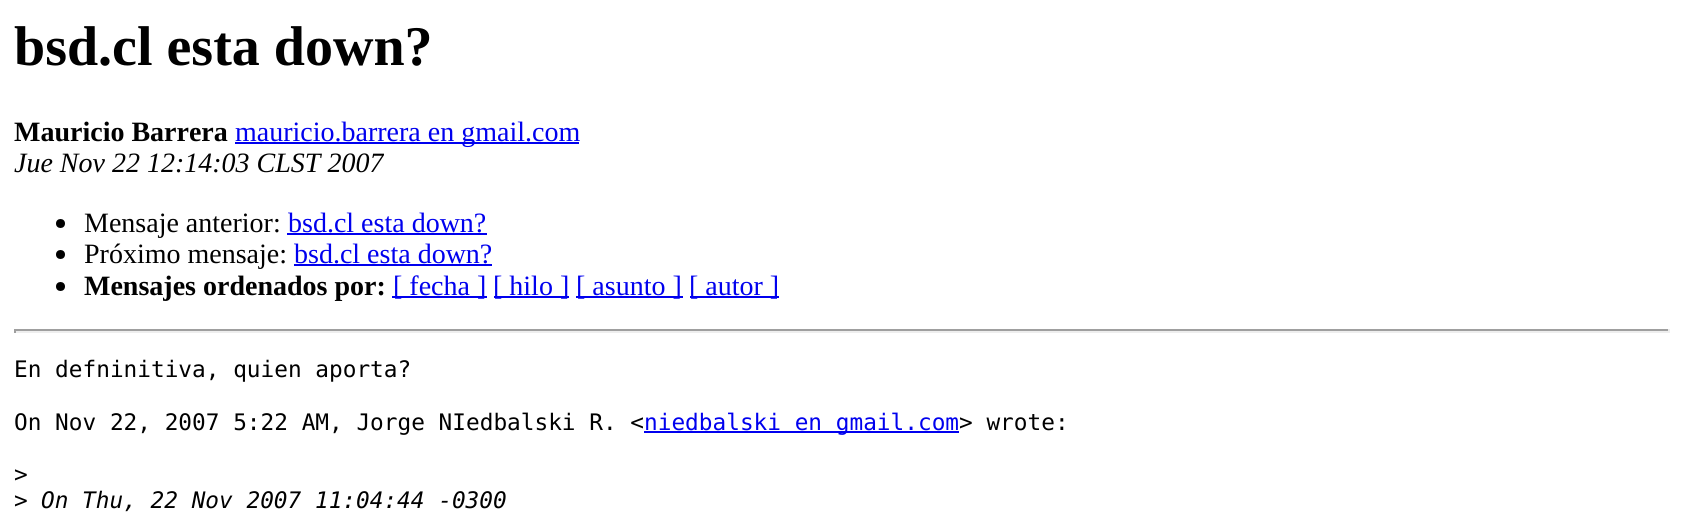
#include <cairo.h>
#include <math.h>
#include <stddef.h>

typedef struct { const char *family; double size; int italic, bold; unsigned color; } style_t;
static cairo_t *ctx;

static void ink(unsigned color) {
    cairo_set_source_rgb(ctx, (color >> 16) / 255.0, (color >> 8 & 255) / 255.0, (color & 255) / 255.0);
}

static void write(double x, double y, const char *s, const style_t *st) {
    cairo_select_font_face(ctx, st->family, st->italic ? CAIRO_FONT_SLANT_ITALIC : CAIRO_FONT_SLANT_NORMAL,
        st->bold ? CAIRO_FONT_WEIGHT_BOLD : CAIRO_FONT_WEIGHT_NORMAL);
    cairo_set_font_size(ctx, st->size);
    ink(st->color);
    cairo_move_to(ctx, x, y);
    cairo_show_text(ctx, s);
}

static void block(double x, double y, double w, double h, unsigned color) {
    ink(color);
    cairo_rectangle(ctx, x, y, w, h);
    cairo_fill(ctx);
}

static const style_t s1 = {"Liberation Serif", 56, 0, 1, 0x000000};
static const style_t s2 = {"Liberation Serif", 28, 0, 1, 0x000000};
static const style_t s3 = {"Liberation Serif", 28, 0, 0, 0x0000ee};
static const style_t s4 = {"Liberation Serif", 28, 1, 0, 0x000000};
static const style_t s5 = {"Liberation Serif", 28, 0, 0, 0x000000};
static const style_t s6 = {"DejaVu Sans Mono", 22.75, 0, 0, 0x000000};
static const style_t s7 = {"DejaVu Sans Mono", 22.75, 0, 0, 0x0000ee};
static const style_t s8 = {"DejaVu Sans Mono", 22.75, 1, 0, 0x000000};

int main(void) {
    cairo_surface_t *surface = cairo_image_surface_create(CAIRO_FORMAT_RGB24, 1682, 516);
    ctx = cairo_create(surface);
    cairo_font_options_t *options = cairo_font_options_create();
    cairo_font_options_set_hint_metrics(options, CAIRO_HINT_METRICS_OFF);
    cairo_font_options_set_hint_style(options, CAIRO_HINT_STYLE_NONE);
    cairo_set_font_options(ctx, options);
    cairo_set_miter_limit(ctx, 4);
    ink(0xffffff);
    cairo_paint(ctx);
    write(14, 65, "bsd.cl esta down?", &s1);
    write(14, 141, "Mauricio Barrera", &s2);
    block(235, 142, 344, 2, 0x0000ee);
    write(235, 141, "mauricio.barrera en gmail.com", &s3);
    write(14, 172, "Jue Nov 22 12:14:03 CLST 2007", &s4);
    cairo_new_path(ctx);
    cairo_arc(ctx, 60.5, 223.5, 4.5, 0, 2 * M_PI);
    cairo_fill(ctx);
    write(84, 232, "Mensaje anterior:", &s5);
    write(288, 232, "bsd.cl esta down?", &s3);
    block(287, 233, 200, 2, 0x0000ee);
    ink(0x000000);
    cairo_new_path(ctx);
    cairo_arc(ctx, 60.5, 254.5, 4.5, 0, 2 * M_PI);
    cairo_fill(ctx);
    write(84, 263, "Próximo mensaje:", &s5);
    write(294, 263, "bsd.cl esta down?", &s3);
    block(294, 264, 198, 2, 0x0000ee);
    ink(0x000000);
    cairo_new_path(ctx);
    cairo_arc(ctx, 60.5, 286.5, 4.5, 0, 2 * M_PI);
    cairo_fill(ctx);
    write(84, 295, "Mensajes ordenados por:", &s2);
    block(392, 296, 95, 2, 0x0000ee);
    write(393, 295, "[ fecha ]", &s3);
    block(494, 296, 75, 2, 0x0000ee);
    write(493, 295, "[ hilo ]", &s3);
    block(576, 296, 107, 2, 0x0000ee);
    write(576, 295, "[ asunto ]", &s3);
    block(690, 296, 89, 2, 0x0000ee);
    write(689, 295, "[ autor ]", &s3);
    block(14, 329, 1656, 2, 0x9f9f9f);
    block(1668, 329, 2, 4, 0xeeeeee);
    block(14, 331, 1656, 2, 0xeeeeee);
    block(14, 329, 2, 4, 0x9f9f9f);
    write(14, 377, "En defninitiva, quien aporta?", &s6);
    write(14, 430, "On Nov 22, 2007 5:22 AM, Jorge NIedbalski R. <", &s6);
    block(644, 431, 315, 2, 0x0000ee);
    write(644, 430, "niedbalski en gmail.com", &s7);
    write(959, 430, "> wrote:", &s6);
    write(14, 482, ">", &s6);
    write(14, 508, ">", &s6);
    write(41, 508, "On Thu, 22 Nov 2007 11:04:44 -0300", &s8);
    cairo_surface_write_to_png(surface, "screenshot.png");
    cairo_font_options_destroy(options);
    cairo_destroy(ctx);
    cairo_surface_destroy(surface);
    return 0;
}
